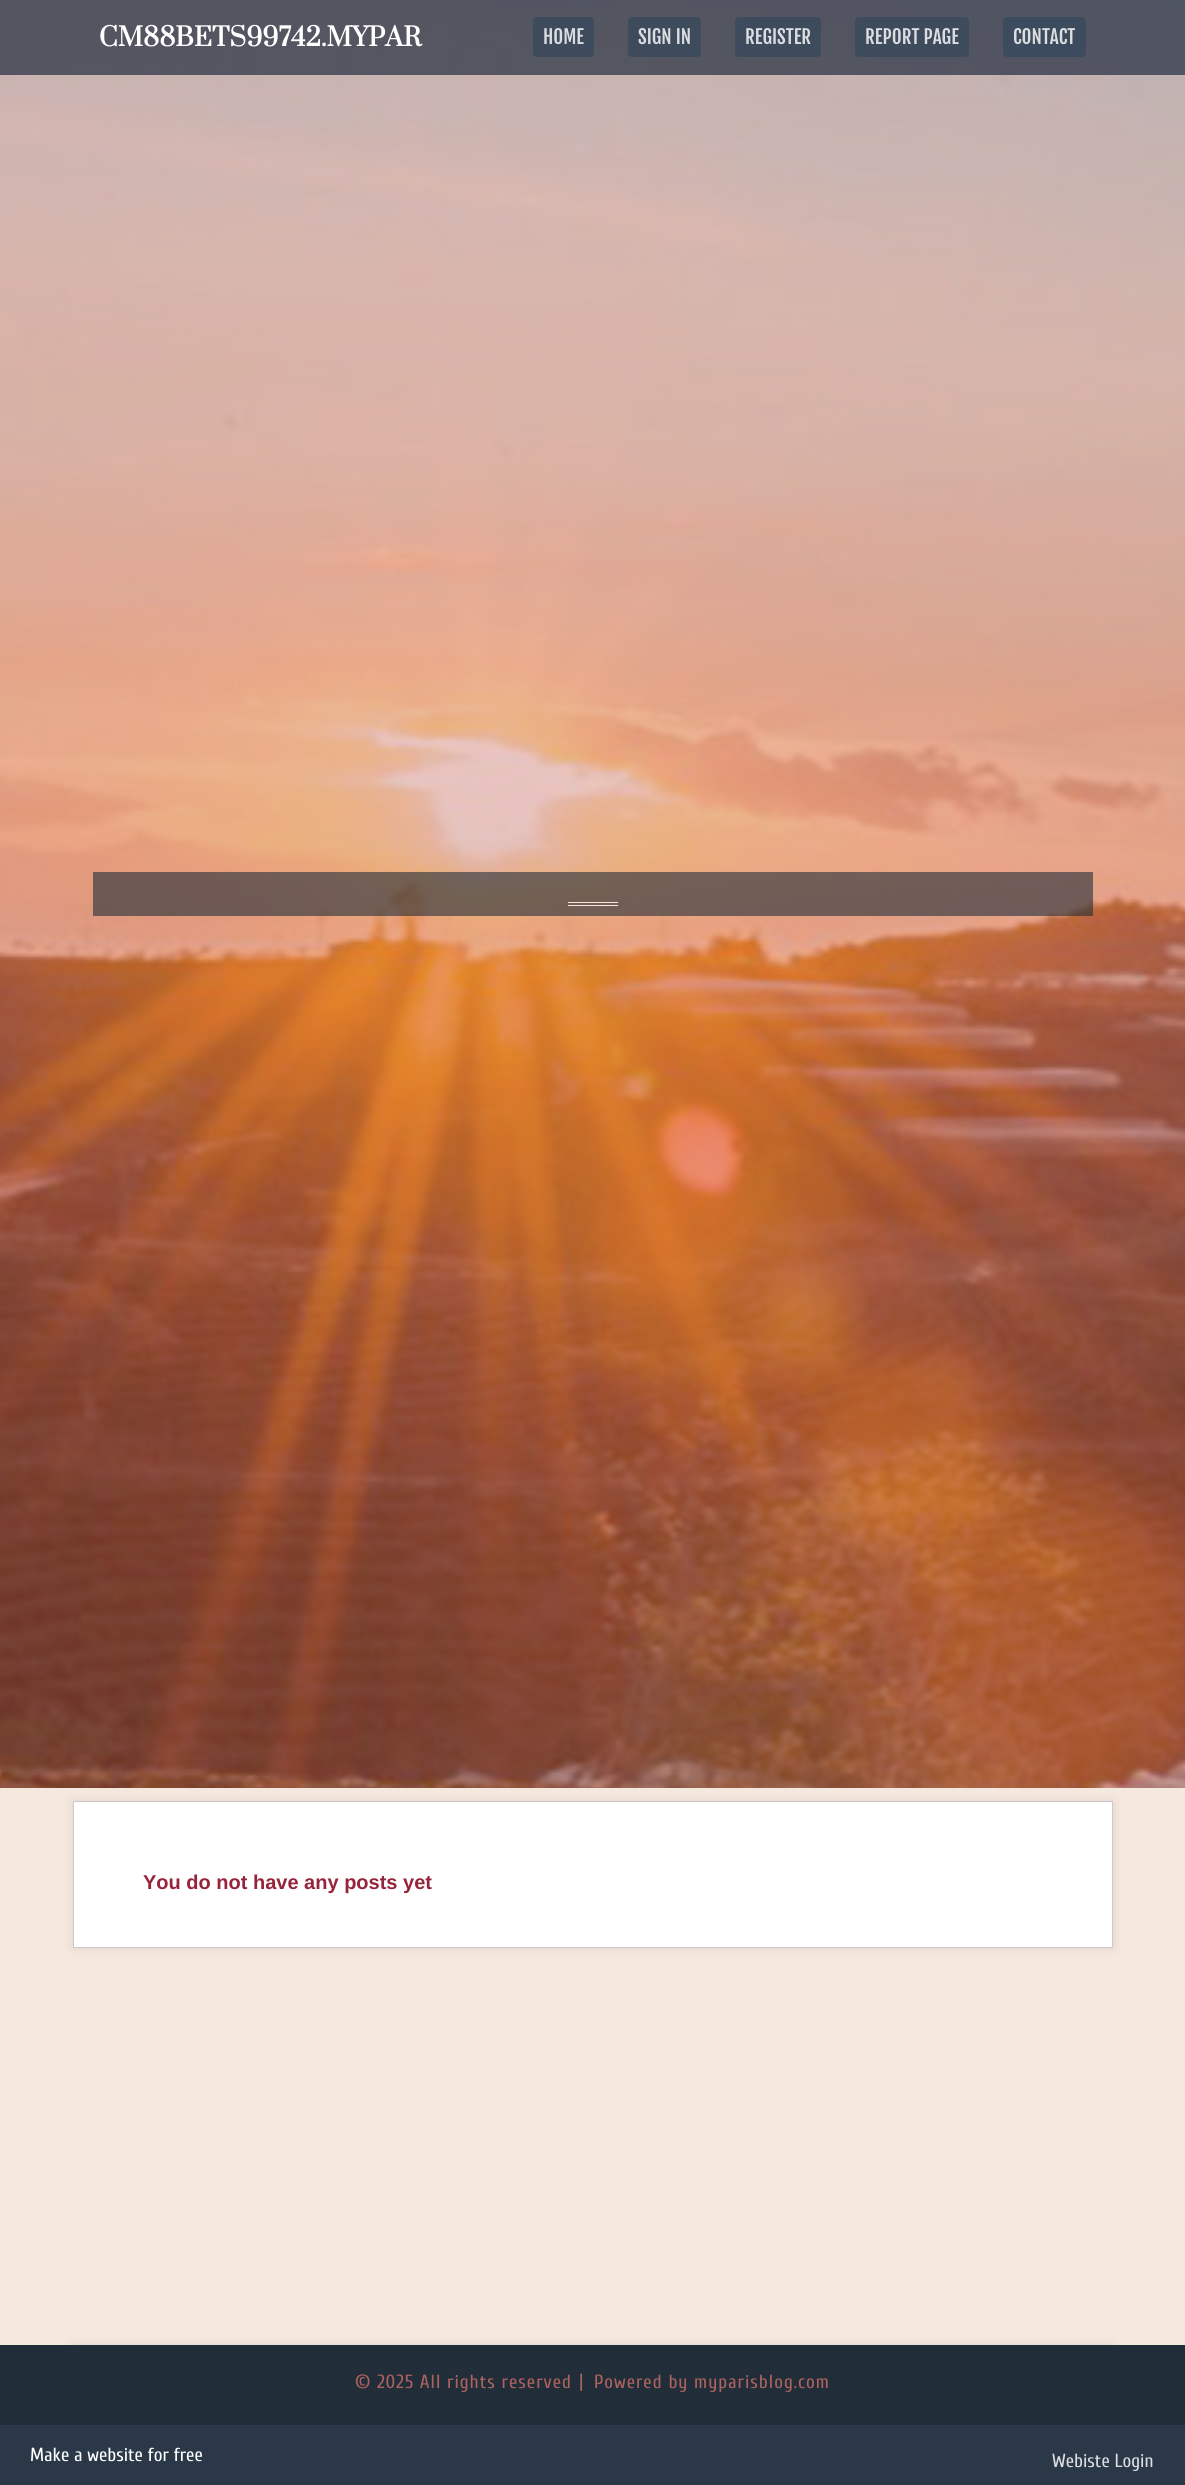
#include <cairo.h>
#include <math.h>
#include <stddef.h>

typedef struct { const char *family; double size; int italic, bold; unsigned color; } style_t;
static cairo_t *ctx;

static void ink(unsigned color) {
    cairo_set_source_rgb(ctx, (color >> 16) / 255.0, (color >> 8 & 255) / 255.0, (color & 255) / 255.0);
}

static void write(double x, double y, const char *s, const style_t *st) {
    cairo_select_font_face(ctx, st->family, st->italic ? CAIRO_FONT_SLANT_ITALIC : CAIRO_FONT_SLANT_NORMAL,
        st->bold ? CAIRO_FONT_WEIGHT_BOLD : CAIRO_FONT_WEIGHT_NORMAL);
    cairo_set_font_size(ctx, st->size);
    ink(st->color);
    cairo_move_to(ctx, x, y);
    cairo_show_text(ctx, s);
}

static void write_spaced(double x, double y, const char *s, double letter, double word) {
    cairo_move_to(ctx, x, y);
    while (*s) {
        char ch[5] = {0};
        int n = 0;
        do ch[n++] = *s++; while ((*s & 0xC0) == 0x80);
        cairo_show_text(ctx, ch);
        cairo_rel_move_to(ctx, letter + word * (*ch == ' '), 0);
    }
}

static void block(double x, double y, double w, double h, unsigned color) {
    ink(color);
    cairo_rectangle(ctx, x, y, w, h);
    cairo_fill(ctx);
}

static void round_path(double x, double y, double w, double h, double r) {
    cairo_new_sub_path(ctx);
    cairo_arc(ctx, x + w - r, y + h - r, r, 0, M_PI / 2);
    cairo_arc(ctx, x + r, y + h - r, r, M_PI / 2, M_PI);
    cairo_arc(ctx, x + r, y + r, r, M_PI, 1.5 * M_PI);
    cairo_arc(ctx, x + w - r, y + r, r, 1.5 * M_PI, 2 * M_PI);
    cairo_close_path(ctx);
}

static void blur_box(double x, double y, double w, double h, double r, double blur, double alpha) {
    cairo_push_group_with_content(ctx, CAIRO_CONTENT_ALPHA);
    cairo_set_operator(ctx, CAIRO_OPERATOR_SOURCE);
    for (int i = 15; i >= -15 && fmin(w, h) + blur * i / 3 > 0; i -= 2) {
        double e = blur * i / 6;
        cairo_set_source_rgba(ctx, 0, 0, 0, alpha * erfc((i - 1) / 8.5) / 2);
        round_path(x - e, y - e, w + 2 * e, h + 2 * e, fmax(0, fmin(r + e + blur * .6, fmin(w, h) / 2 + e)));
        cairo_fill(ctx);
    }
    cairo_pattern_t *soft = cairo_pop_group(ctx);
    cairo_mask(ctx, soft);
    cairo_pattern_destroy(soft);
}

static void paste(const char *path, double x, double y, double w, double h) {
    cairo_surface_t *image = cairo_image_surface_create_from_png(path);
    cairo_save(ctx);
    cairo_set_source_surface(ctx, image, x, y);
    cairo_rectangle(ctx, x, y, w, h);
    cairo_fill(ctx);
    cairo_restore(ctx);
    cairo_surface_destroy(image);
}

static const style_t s1 = {"Prata", 25, 0, 1, 0xffffff};
static const style_t s2 = {"Fjalla One", 19, 0, 0, 0xdbdde0};
static const style_t s3 = {"Liberation Sans", 20, 0, 1, 0x96243a};
static const style_t s4 = {"Cuprum", 19, 0, 0, 0xffffff};
static const style_t s5 = {"Cuprum", 19, 0, 0, 0xdbdde0};

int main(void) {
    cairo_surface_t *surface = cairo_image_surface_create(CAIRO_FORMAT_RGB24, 1185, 2485);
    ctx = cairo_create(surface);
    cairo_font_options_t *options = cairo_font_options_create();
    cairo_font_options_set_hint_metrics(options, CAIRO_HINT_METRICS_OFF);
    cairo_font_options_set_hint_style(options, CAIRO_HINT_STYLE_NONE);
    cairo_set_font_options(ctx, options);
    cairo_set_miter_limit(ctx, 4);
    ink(0xf5e8df);
    cairo_paint(ctx);
    paste("pic1.png", 0, 0, 1185, 1788);
    cairo_set_source_rgba(ctx, 0.137, 0.18, 0.247, 0.7);
    cairo_rectangle(ctx, 0, 0, 1185, 75);
    cairo_fill(ctx);
    write(99, 46, "CM88BETS99742.MYPAR", &s1);
    ink(0x3d4b5d);
    round_path(533, 17, 61, 40, 4);
    cairo_fill(ctx);
    write(543, 44, "HOME", &s2);
    ink(0x3d4b5d);
    round_path(628, 17, 73, 40, 4);
    cairo_fill(ctx);
    write(638, 44, "SIGN IN", &s2);
    ink(0x3d4b5d);
    round_path(735, 17, 86, 40, 4);
    cairo_fill(ctx);
    write(745, 44, "REGISTER", &s2);
    ink(0x3d4b5d);
    round_path(855, 17, 114, 40, 4);
    cairo_fill(ctx);
    write(865, 44, "REPORT PAGE", &s2);
    ink(0x3c4b5d);
    round_path(1003, 17, 83, 40, 4);
    cairo_fill(ctx);
    write(1013, 44, "CONTACT", &s2);
    cairo_set_source_rgba(ctx, 0.133, 0.176, 0.227, 0.6);
    cairo_rectangle(ctx, 93, 872, 1000, 44);
    cairo_fill(ctx);
    block(568, 902, 50, 1, 0xf5e8df);
    block(568, 905, 50, 1, 0xf5e8df);
    ink(0x000000);
    blur_box(73, 1801, 1040, 147, 0, 5, 0.1);
    ink(0xffffff);
    cairo_rectangle(ctx, 73.5, 1801.5, 1039, 146);
    cairo_fill_preserve(ctx);
    ink(0xd1c7c9);
    cairo_set_line_width(ctx, 1);
    cairo_stroke(ctx);
    write(143, 1889, "You do not have any posts yet", &s3);
    ink(0x000000);
    blur_box(73, 2345, 1040, 8, 0, 5, 0.1);
    block(0, 2345, 1185, 80, 0x222d3a);
    cairo_select_font_face(ctx, "Cuprum", CAIRO_FONT_SLANT_NORMAL, CAIRO_FONT_WEIGHT_NORMAL);
    cairo_set_font_size(ctx, 19);
    ink(0xac635d);
    write_spaced(355, 2388, "© 2025 All rights reserved", 1, 0);
    write_spaced(579, 2387, "|", 1, 0);
    write_spaced(594, 2388, "Powered by myparisblog.com", 1, 0);
    block(0, 2425, 1185, 60, 0x2a3848);
    write(30, 2461, "Make a website for free", &s4);
    write(1052, 2467, "Webiste Login", &s5);
    cairo_surface_write_to_png(surface, "screenshot.png");
    cairo_font_options_destroy(options);
    cairo_destroy(ctx);
    cairo_surface_destroy(surface);
    return 0;
}
